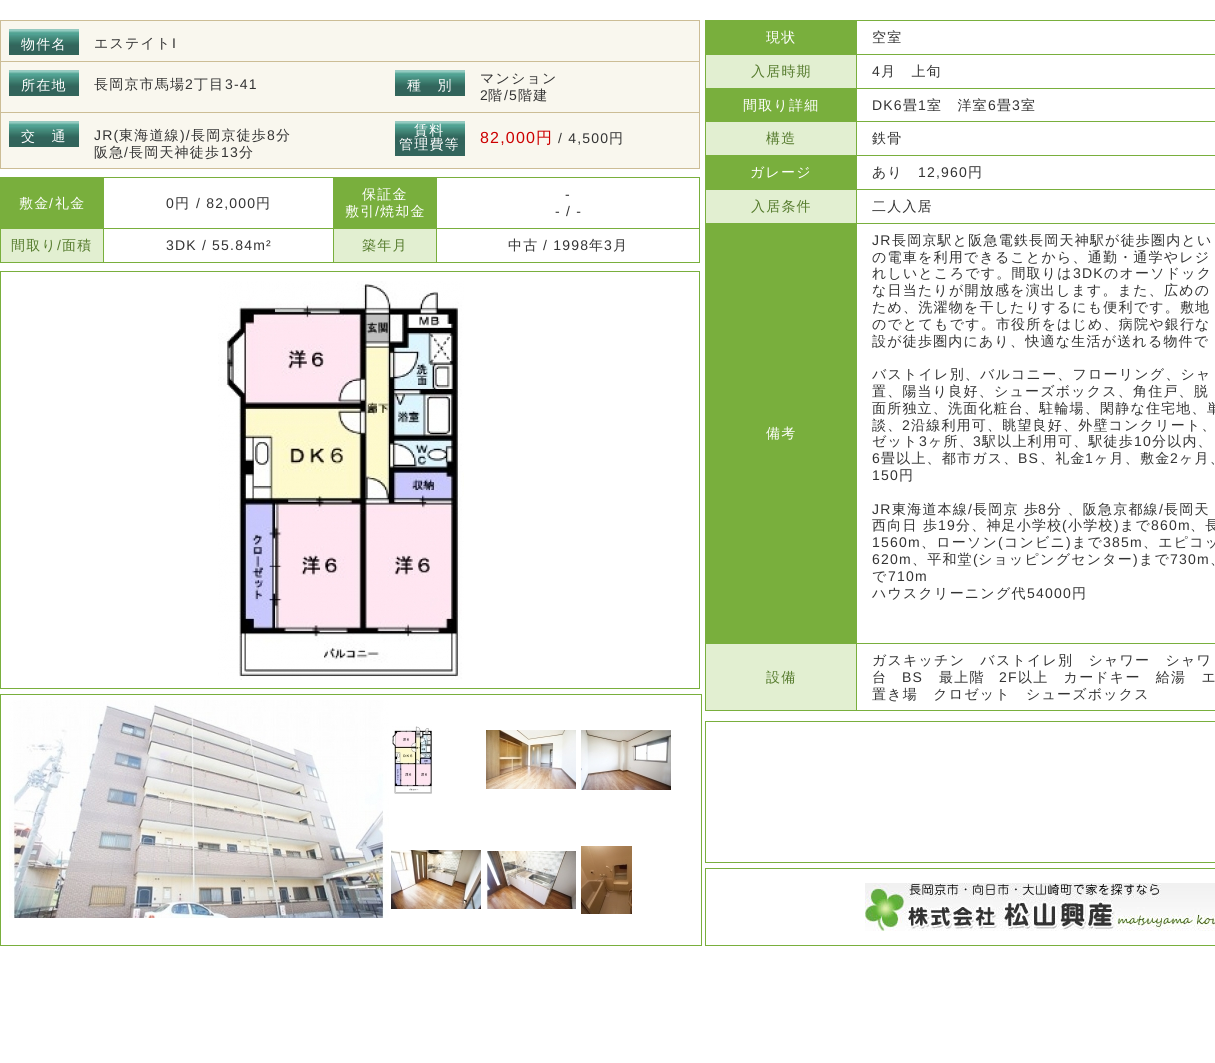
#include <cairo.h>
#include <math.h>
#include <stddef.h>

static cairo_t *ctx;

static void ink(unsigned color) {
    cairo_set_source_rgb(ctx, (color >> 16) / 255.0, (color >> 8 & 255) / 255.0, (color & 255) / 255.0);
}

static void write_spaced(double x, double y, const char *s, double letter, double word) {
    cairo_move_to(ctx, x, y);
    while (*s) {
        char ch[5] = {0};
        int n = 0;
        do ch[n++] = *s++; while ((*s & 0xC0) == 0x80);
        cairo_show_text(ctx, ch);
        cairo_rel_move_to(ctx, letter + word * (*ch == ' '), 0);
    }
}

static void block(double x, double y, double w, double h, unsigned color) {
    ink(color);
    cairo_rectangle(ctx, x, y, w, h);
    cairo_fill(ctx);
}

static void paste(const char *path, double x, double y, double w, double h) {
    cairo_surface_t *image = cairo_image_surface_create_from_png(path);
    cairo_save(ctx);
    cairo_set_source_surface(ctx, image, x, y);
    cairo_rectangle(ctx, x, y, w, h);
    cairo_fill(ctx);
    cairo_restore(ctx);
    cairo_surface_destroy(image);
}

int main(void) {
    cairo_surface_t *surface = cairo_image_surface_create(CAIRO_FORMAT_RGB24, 1215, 1063);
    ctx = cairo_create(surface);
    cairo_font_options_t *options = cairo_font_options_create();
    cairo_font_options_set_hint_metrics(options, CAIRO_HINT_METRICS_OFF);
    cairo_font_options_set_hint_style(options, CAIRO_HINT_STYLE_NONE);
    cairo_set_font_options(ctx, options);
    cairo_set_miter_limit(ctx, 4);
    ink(0xffffff);
    cairo_paint(ctx);
    block(0, 20, 700, 1, 0xccbd95);
    block(699, 20, 1, 149, 0xccbd95);
    block(0, 168, 700, 1, 0xccbd95);
    block(0, 20, 1, 149, 0xccbd95);
    block(1, 21, 698, 40, 0xf9f7ee);
    paste("pic1.png", 9, 29, 70, 26);
    cairo_select_font_face(ctx, "WenQuanYi Zen Hei Medium", CAIRO_FONT_SLANT_NORMAL, CAIRO_FONT_WEIGHT_NORMAL);
    cairo_set_font_size(ctx, 14);
    ink(0xffffff);
    write_spaced(21, 49, "物件名", 1.2, 0);
    block(0, 61, 700, 1, 0xccbd95);
    ink(0x333333);
    write_spaced(94, 48, "エステイト", 1.2, 0);
    cairo_select_font_face(ctx, "Liberation Sans", CAIRO_FONT_SLANT_NORMAL, CAIRO_FONT_WEIGHT_NORMAL);
    write_spaced(172, 48, "I", 1.2, 0);
    block(1, 62, 698, 50, 0xf9f7ee);
    paste("pic1.png", 9, 70, 70, 26);
    cairo_select_font_face(ctx, "WenQuanYi Zen Hei Medium", CAIRO_FONT_SLANT_NORMAL, CAIRO_FONT_WEIGHT_NORMAL);
    ink(0xffffff);
    write_spaced(21, 90, "所在地", 1.2, 0);
    ink(0x333333);
    write_spaced(94, 89, "長岡京市馬場", 1.2, 0);
    cairo_select_font_face(ctx, "Liberation Sans", CAIRO_FONT_SLANT_NORMAL, CAIRO_FONT_WEIGHT_NORMAL);
    write_spaced(185, 89, "2", 1.2, 0);
    cairo_select_font_face(ctx, "WenQuanYi Zen Hei Medium", CAIRO_FONT_SLANT_NORMAL, CAIRO_FONT_WEIGHT_NORMAL);
    write_spaced(194, 89, "丁目", 1.2, 0);
    cairo_select_font_face(ctx, "Liberation Sans", CAIRO_FONT_SLANT_NORMAL, CAIRO_FONT_WEIGHT_NORMAL);
    write_spaced(225, 89, "3-41", 1.2, 0);
    paste("pic1.png", 395, 70, 70, 26);
    cairo_select_font_face(ctx, "WenQuanYi Zen Hei Medium", CAIRO_FONT_SLANT_NORMAL, CAIRO_FONT_WEIGHT_NORMAL);
    ink(0xffffff);
    write_spaced(407, 90, "種　別", 1.2, 0);
    block(0, 112, 700, 1, 0xccbd95);
    ink(0x333333);
    write_spaced(480, 83, "マンション", 1.2, 0);
    cairo_select_font_face(ctx, "Liberation Sans", CAIRO_FONT_SLANT_NORMAL, CAIRO_FONT_WEIGHT_NORMAL);
    write_spaced(480, 100, "2", 1.2, 0);
    cairo_select_font_face(ctx, "WenQuanYi Zen Hei Medium", CAIRO_FONT_SLANT_NORMAL, CAIRO_FONT_WEIGHT_NORMAL);
    write_spaced(488, 100, "階", 1.2, 0);
    cairo_select_font_face(ctx, "Liberation Sans", CAIRO_FONT_SLANT_NORMAL, CAIRO_FONT_WEIGHT_NORMAL);
    write_spaced(504, 100, "/5", 1.2, 0);
    cairo_select_font_face(ctx, "WenQuanYi Zen Hei Medium", CAIRO_FONT_SLANT_NORMAL, CAIRO_FONT_WEIGHT_NORMAL);
    write_spaced(518, 100, "階建", 1.2, 0);
    block(1, 113, 698, 55, 0xf9f7ee);
    paste("pic1.png", 9, 121, 70, 26);
    ink(0xffffff);
    write_spaced(21, 141, "交　通", 1.2, 0);
    cairo_select_font_face(ctx, "Liberation Sans", CAIRO_FONT_SLANT_NORMAL, CAIRO_FONT_WEIGHT_NORMAL);
    ink(0x333333);
    write_spaced(94, 140, "JR(", 1.2, 0);
    cairo_select_font_face(ctx, "WenQuanYi Zen Hei Medium", CAIRO_FONT_SLANT_NORMAL, CAIRO_FONT_WEIGHT_NORMAL);
    write_spaced(119, 140, "東海道線", 1.2, 0);
    cairo_select_font_face(ctx, "Liberation Sans", CAIRO_FONT_SLANT_NORMAL, CAIRO_FONT_WEIGHT_NORMAL);
    write_spaced(180, 140, ")/", 1.2, 0);
    cairo_select_font_face(ctx, "WenQuanYi Zen Hei Medium", CAIRO_FONT_SLANT_NORMAL, CAIRO_FONT_WEIGHT_NORMAL);
    write_spaced(191, 140, "長岡京徒歩", 1.2, 0);
    cairo_select_font_face(ctx, "Liberation Sans", CAIRO_FONT_SLANT_NORMAL, CAIRO_FONT_WEIGHT_NORMAL);
    write_spaced(267, 140, "8", 1.2, 0);
    cairo_select_font_face(ctx, "WenQuanYi Zen Hei Medium", CAIRO_FONT_SLANT_NORMAL, CAIRO_FONT_WEIGHT_NORMAL);
    write_spaced(276, 140, "分", 1.2, 0);
    write_spaced(94, 157, "阪急", 1.2, 0);
    cairo_select_font_face(ctx, "Liberation Sans", CAIRO_FONT_SLANT_NORMAL, CAIRO_FONT_WEIGHT_NORMAL);
    write_spaced(124, 157, "/", 1.2, 0);
    cairo_select_font_face(ctx, "WenQuanYi Zen Hei Medium", CAIRO_FONT_SLANT_NORMAL, CAIRO_FONT_WEIGHT_NORMAL);
    write_spaced(129, 157, "長岡天神徒歩", 1.2, 0);
    cairo_select_font_face(ctx, "Liberation Sans", CAIRO_FONT_SLANT_NORMAL, CAIRO_FONT_WEIGHT_NORMAL);
    write_spaced(221, 157, "13", 1.2, 0);
    cairo_select_font_face(ctx, "WenQuanYi Zen Hei Medium", CAIRO_FONT_SLANT_NORMAL, CAIRO_FONT_WEIGHT_NORMAL);
    write_spaced(239, 157, "分", 1.2, 0);
    paste("pic2.png", 395, 121, 70, 35);
    ink(0xffffff);
    write_spaced(414, 135, "賃料", 1.2, 0);
    write_spaced(399, 149, "管理費等", 1.2, 0);
    cairo_select_font_face(ctx, "Liberation Sans", CAIRO_FONT_SLANT_NORMAL, CAIRO_FONT_WEIGHT_NORMAL);
    cairo_set_font_size(ctx, 16);
    ink(0xcc0000);
    write_spaced(480, 143, "82,000", 1.2, 0);
    cairo_select_font_face(ctx, "WenQuanYi Zen Hei Medium", CAIRO_FONT_SLANT_NORMAL, CAIRO_FONT_WEIGHT_NORMAL);
    write_spaced(536, 143, "円", 1.2, 0);
    cairo_select_font_face(ctx, "Liberation Sans", CAIRO_FONT_SLANT_NORMAL, CAIRO_FONT_WEIGHT_NORMAL);
    cairo_set_font_size(ctx, 14);
    ink(0x333333);
    write_spaced(558, 143, "/ 4,500", 1.2, 0);
    cairo_select_font_face(ctx, "WenQuanYi Zen Hei Medium", CAIRO_FONT_SLANT_NORMAL, CAIRO_FONT_WEIGHT_NORMAL);
    write_spaced(609, 143, "円", 1.2, 0);
    block(1, 178, 103, 50, 0x79af3d);
    block(333, 177, 367, 1, 0x79af3d);
    block(436, 228, 264, 1, 0x79af3d);
    block(699, 228, 1, 35, 0x79af3d);
    block(436, 262, 264, 1, 0x79af3d);
    block(436, 228, 1, 35, 0x79af3d);
    block(333, 228, 104, 1, 0x79af3d);
    block(333, 262, 104, 1, 0x79af3d);
    block(333, 228, 1, 35, 0x79af3d);
    block(103, 228, 231, 1, 0x79af3d);
    block(333, 177, 1, 52, 0x79af3d);
    block(0, 177, 334, 1, 0x79af3d);
    block(103, 262, 231, 1, 0x79af3d);
    block(103, 228, 1, 35, 0x79af3d);
    block(0, 228, 104, 1, 0x79af3d);
    block(0, 262, 104, 1, 0x79af3d);
    block(0, 228, 1, 35, 0x79af3d);
    block(0, 177, 1, 52, 0x79af3d);
    ink(0xffffff);
    write_spaced(19, 208, "敷金", 1.2, 0);
    cairo_select_font_face(ctx, "Liberation Sans", CAIRO_FONT_SLANT_NORMAL, CAIRO_FONT_WEIGHT_NORMAL);
    write_spaced(49, 208, "/", 1.2, 0);
    cairo_select_font_face(ctx, "WenQuanYi Zen Hei Medium", CAIRO_FONT_SLANT_NORMAL, CAIRO_FONT_WEIGHT_NORMAL);
    write_spaced(55, 208, "礼金", 1.2, 0);
    cairo_select_font_face(ctx, "Liberation Sans", CAIRO_FONT_SLANT_NORMAL, CAIRO_FONT_WEIGHT_NORMAL);
    ink(0x333333);
    write_spaced(166, 208, "0", 1.2, 0);
    cairo_select_font_face(ctx, "WenQuanYi Zen Hei Medium", CAIRO_FONT_SLANT_NORMAL, CAIRO_FONT_WEIGHT_NORMAL);
    write_spaced(175, 208, "円", 1.2, 0);
    cairo_select_font_face(ctx, "Liberation Sans", CAIRO_FONT_SLANT_NORMAL, CAIRO_FONT_WEIGHT_NORMAL);
    write_spaced(196, 208, "/ 82,000", 1.2, 0);
    cairo_select_font_face(ctx, "WenQuanYi Zen Hei Medium", CAIRO_FONT_SLANT_NORMAL, CAIRO_FONT_WEIGHT_NORMAL);
    write_spaced(256, 208, "円", 1.2, 0);
    block(334, 178, 103, 50, 0x79af3d);
    ink(0xffffff);
    write_spaced(362, 199, "保証金", 1.2, 0);
    write_spaced(345, 216, "敷引", 1.2, 0);
    cairo_select_font_face(ctx, "Liberation Sans", CAIRO_FONT_SLANT_NORMAL, CAIRO_FONT_WEIGHT_NORMAL);
    write_spaced(375, 216, "/", 1.2, 0);
    cairo_select_font_face(ctx, "WenQuanYi Zen Hei Medium", CAIRO_FONT_SLANT_NORMAL, CAIRO_FONT_WEIGHT_NORMAL);
    write_spaced(380, 216, "焼却金", 1.2, 0);
    block(699, 177, 1, 52, 0x79af3d);
    cairo_select_font_face(ctx, "Liberation Sans", CAIRO_FONT_SLANT_NORMAL, CAIRO_FONT_WEIGHT_NORMAL);
    ink(0x333333);
    write_spaced(565, 199, "-", 1.2, 0);
    write_spaced(555, 216, "- / -", 1.2, 0);
    block(1, 229, 102, 33, 0xe2efd1);
    cairo_select_font_face(ctx, "WenQuanYi Zen Hei Medium", CAIRO_FONT_SLANT_NORMAL, CAIRO_FONT_WEIGHT_NORMAL);
    ink(0x557b2c);
    write_spaced(11, 250, "間取り", 1.2, 0);
    cairo_select_font_face(ctx, "Liberation Sans", CAIRO_FONT_SLANT_NORMAL, CAIRO_FONT_WEIGHT_NORMAL);
    write_spaced(57, 250, "/", 1.2, 0);
    cairo_select_font_face(ctx, "WenQuanYi Zen Hei Medium", CAIRO_FONT_SLANT_NORMAL, CAIRO_FONT_WEIGHT_NORMAL);
    write_spaced(62, 250, "面積", 1.2, 0);
    cairo_select_font_face(ctx, "Liberation Sans", CAIRO_FONT_SLANT_NORMAL, CAIRO_FONT_WEIGHT_NORMAL);
    ink(0x333333);
    write_spaced(166, 250, "3DK / 55.84m²", 1.2, 0);
    block(334, 229, 102, 33, 0xe2efd1);
    cairo_select_font_face(ctx, "WenQuanYi Zen Hei Medium", CAIRO_FONT_SLANT_NORMAL, CAIRO_FONT_WEIGHT_NORMAL);
    ink(0x557b2c);
    write_spaced(362, 250, "築年月", 1.2, 0);
    ink(0x333333);
    write_spaced(508, 250, "中古", 1.2, 0);
    cairo_select_font_face(ctx, "Liberation Sans", CAIRO_FONT_SLANT_NORMAL, CAIRO_FONT_WEIGHT_NORMAL);
    write_spaced(543, 250, "/ 1998", 1.2, 0);
    cairo_select_font_face(ctx, "WenQuanYi Zen Hei Medium", CAIRO_FONT_SLANT_NORMAL, CAIRO_FONT_WEIGHT_NORMAL);
    write_spaced(589, 250, "年", 1.2, 0);
    cairo_select_font_face(ctx, "Liberation Sans", CAIRO_FONT_SLANT_NORMAL, CAIRO_FONT_WEIGHT_NORMAL);
    write_spaced(604, 250, "3", 1.2, 0);
    cairo_select_font_face(ctx, "WenQuanYi Zen Hei Medium", CAIRO_FONT_SLANT_NORMAL, CAIRO_FONT_WEIGHT_NORMAL);
    write_spaced(613, 250, "月", 1.2, 0);
    cairo_rectangle(ctx, 0.5, 271.5, 699, 417);
    ink(0x79af3d);
    cairo_set_line_width(ctx, 1);
    cairo_stroke(ctx);
    paste("pic3.png", 218, 281, 246, 399);
    cairo_rectangle(ctx, 0.5, 694.5, 701, 251);
    cairo_stroke(ctx);
    paste("pic4.png", 9, 700, 380, 218);
    paste("pic5.png", 392, 726, 40, 68);
    paste("pic6.png", 486, 730, 90, 59);
    paste("pic7.png", 581, 730, 90, 60);
    paste("pic8.png", 391, 850, 90, 59);
    paste("pic9.png", 486, 851, 90, 58);
    paste("pic10.png", 581, 846, 51, 68);
    block(706, 21, 151, 33, 0x79af3d);
    block(705, 20, 510, 1, 0x79af3d);
    block(856, 54, 359, 1, 0x79af3d);
    block(705, 88, 510, 1, 0x79af3d);
    block(856, 54, 1, 35, 0x79af3d);
    block(705, 54, 152, 1, 0x79af3d);
    block(856, 121, 359, 1, 0x79af3d);
    block(705, 155, 510, 1, 0x79af3d);
    block(856, 121, 1, 35, 0x79af3d);
    block(705, 121, 152, 1, 0x79af3d);
    block(856, 189, 359, 1, 0x79af3d);
    block(705, 223, 510, 1, 0x79af3d);
    block(856, 189, 1, 35, 0x79af3d);
    block(705, 189, 152, 1, 0x79af3d);
    block(856, 643, 359, 1, 0x79af3d);
    block(856, 710, 359, 1, 0x79af3d);
    block(856, 643, 1, 68, 0x79af3d);
    block(705, 643, 152, 1, 0x79af3d);
    block(705, 710, 152, 1, 0x79af3d);
    block(705, 643, 1, 68, 0x79af3d);
    block(705, 223, 1, 421, 0x79af3d);
    block(705, 189, 1, 35, 0x79af3d);
    block(705, 155, 1, 35, 0x79af3d);
    block(705, 121, 1, 35, 0x79af3d);
    block(705, 88, 1, 34, 0x79af3d);
    block(705, 54, 1, 35, 0x79af3d);
    block(705, 20, 1, 35, 0x79af3d);
    ink(0xffffff);
    write_spaced(766, 42, "現状", 1.2, 0);
    ink(0x333333);
    write_spaced(872, 42, "空室", 1.2, 0);
    block(706, 55, 150, 33, 0xe2efd1);
    ink(0x557b2c);
    write_spaced(751, 76, "入居時期", 1.2, 0);
    cairo_select_font_face(ctx, "Liberation Sans", CAIRO_FONT_SLANT_NORMAL, CAIRO_FONT_WEIGHT_NORMAL);
    ink(0x333333);
    write_spaced(872, 76, "4", 1.2, 0);
    cairo_select_font_face(ctx, "WenQuanYi Zen Hei Medium", CAIRO_FONT_SLANT_NORMAL, CAIRO_FONT_WEIGHT_NORMAL);
    write_spaced(881, 76, "月　上旬", 1.2, 0);
    block(706, 89, 151, 32, 0x79af3d);
    ink(0xffffff);
    write_spaced(743, 110, "間取り詳細", 1.2, 0);
    cairo_select_font_face(ctx, "Liberation Sans", CAIRO_FONT_SLANT_NORMAL, CAIRO_FONT_WEIGHT_NORMAL);
    ink(0x333333);
    write_spaced(872, 110, "DK6", 1.2, 0);
    cairo_select_font_face(ctx, "WenQuanYi Zen Hei Medium", CAIRO_FONT_SLANT_NORMAL, CAIRO_FONT_WEIGHT_NORMAL);
    write_spaced(903, 110, "畳", 1.2, 0);
    cairo_select_font_face(ctx, "Liberation Sans", CAIRO_FONT_SLANT_NORMAL, CAIRO_FONT_WEIGHT_NORMAL);
    write_spaced(918, 110, "1", 1.2, 0);
    cairo_select_font_face(ctx, "WenQuanYi Zen Hei Medium", CAIRO_FONT_SLANT_NORMAL, CAIRO_FONT_WEIGHT_NORMAL);
    write_spaced(927, 110, "室　洋室", 1.2, 0);
    cairo_select_font_face(ctx, "Liberation Sans", CAIRO_FONT_SLANT_NORMAL, CAIRO_FONT_WEIGHT_NORMAL);
    write_spaced(988, 110, "6", 1.2, 0);
    cairo_select_font_face(ctx, "WenQuanYi Zen Hei Medium", CAIRO_FONT_SLANT_NORMAL, CAIRO_FONT_WEIGHT_NORMAL);
    write_spaced(997, 110, "畳", 1.2, 0);
    cairo_select_font_face(ctx, "Liberation Sans", CAIRO_FONT_SLANT_NORMAL, CAIRO_FONT_WEIGHT_NORMAL);
    write_spaced(1012, 110, "3", 1.2, 0);
    cairo_select_font_face(ctx, "WenQuanYi Zen Hei Medium", CAIRO_FONT_SLANT_NORMAL, CAIRO_FONT_WEIGHT_NORMAL);
    write_spaced(1021, 110, "室", 1.2, 0);
    block(706, 122, 150, 33, 0xe2efd1);
    ink(0x557b2c);
    write_spaced(766, 143, "構造", 1.2, 0);
    ink(0x333333);
    write_spaced(872, 143, "鉄骨", 1.2, 0);
    block(706, 156, 151, 33, 0x79af3d);
    ink(0xffffff);
    write_spaced(750, 177, "ガレージ", 1.2, 0);
    ink(0x333333);
    write_spaced(872, 177, "あり", 1.2, 0);
    cairo_select_font_face(ctx, "Liberation Sans", CAIRO_FONT_SLANT_NORMAL, CAIRO_FONT_WEIGHT_NORMAL);
    write_spaced(918, 177, "12,960", 1.2, 0);
    cairo_select_font_face(ctx, "WenQuanYi Zen Hei Medium", CAIRO_FONT_SLANT_NORMAL, CAIRO_FONT_WEIGHT_NORMAL);
    write_spaced(968, 177, "円", 1.2, 0);
    block(706, 190, 150, 33, 0xe2efd1);
    ink(0x557b2c);
    write_spaced(751, 211, "入居条件", 1.2, 0);
    ink(0x333333);
    write_spaced(872, 211, "二人入居", 1.2, 0);
    block(706, 224, 151, 419, 0x79af3d);
    ink(0xffffff);
    write_spaced(766, 438, "備考", 1.2, 0);
    cairo_select_font_face(ctx, "Liberation Sans", CAIRO_FONT_SLANT_NORMAL, CAIRO_FONT_WEIGHT_NORMAL);
    ink(0x333333);
    write_spaced(872, 245, "JR", 1.2, 0);
    cairo_select_font_face(ctx, "WenQuanYi Zen Hei Medium", CAIRO_FONT_SLANT_NORMAL, CAIRO_FONT_WEIGHT_NORMAL);
    write_spaced(892, 245, "長岡京駅と阪急電鉄長岡天神駅が徒歩圏内とい", 1.2, 0);
    write_spaced(872, 262, "の電車を利用できることから、通勤・通学やレジ", 1.2, 0);
    write_spaced(872, 278, "れしいところです。間取りは", 1.2, 0);
    cairo_select_font_face(ctx, "Liberation Sans", CAIRO_FONT_SLANT_NORMAL, CAIRO_FONT_WEIGHT_NORMAL);
    write_spaced(1073, 278, "3DK", 1.2, 0);
    cairo_select_font_face(ctx, "WenQuanYi Zen Hei Medium", CAIRO_FONT_SLANT_NORMAL, CAIRO_FONT_WEIGHT_NORMAL);
    write_spaced(1104, 278, "のオーソドック", 1.2, 0);
    write_spaced(872, 295, "な日当たりが開放感を演出します。また、広めの", 1.2, 0);
    write_spaced(872, 312, "ため、洗濯物を干したりするにも便利です。敷地", 1.2, 0);
    write_spaced(872, 329, "のでとてもです。市役所をはじめ、病院や銀行な", 1.2, 0);
    write_spaced(872, 346, "設が徒歩圏内にあり、快適な生活が送れる物件で", 1.2, 0);
    write_spaced(872, 379, "バストイレ別、バルコニー、フローリング、シャ", 1.2, 0);
    write_spaced(872, 396, "置、陽当り良好、シューズボックス、角住戸、脱", 1.2, 0);
    write_spaced(872, 413, "面所独立、洗面化粧台、駐輪場、閑静な住宅地、単", 1.2, 0);
    write_spaced(872, 430, "談、", 1.2, 0);
    cairo_select_font_face(ctx, "Liberation Sans", CAIRO_FONT_SLANT_NORMAL, CAIRO_FONT_WEIGHT_NORMAL);
    write_spaced(902, 430, "2", 1.2, 0);
    cairo_select_font_face(ctx, "WenQuanYi Zen Hei Medium", CAIRO_FONT_SLANT_NORMAL, CAIRO_FONT_WEIGHT_NORMAL);
    write_spaced(911, 430, "沿線利用可、眺望良好、外壁コンクリート、", 1.2, 0);
    write_spaced(872, 446, "ゼット", 1.2, 0);
    cairo_select_font_face(ctx, "Liberation Sans", CAIRO_FONT_SLANT_NORMAL, CAIRO_FONT_WEIGHT_NORMAL);
    write_spaced(919, 446, "3", 1.2, 0);
    cairo_select_font_face(ctx, "WenQuanYi Zen Hei Medium", CAIRO_FONT_SLANT_NORMAL, CAIRO_FONT_WEIGHT_NORMAL);
    write_spaced(928, 446, "ヶ所、", 1.2, 0);
    cairo_select_font_face(ctx, "Liberation Sans", CAIRO_FONT_SLANT_NORMAL, CAIRO_FONT_WEIGHT_NORMAL);
    write_spaced(973, 446, "3", 1.2, 0);
    cairo_select_font_face(ctx, "WenQuanYi Zen Hei Medium", CAIRO_FONT_SLANT_NORMAL, CAIRO_FONT_WEIGHT_NORMAL);
    write_spaced(982, 446, "駅以上利用可、駅徒歩", 1.2, 0);
    cairo_select_font_face(ctx, "Liberation Sans", CAIRO_FONT_SLANT_NORMAL, CAIRO_FONT_WEIGHT_NORMAL);
    write_spaced(1134, 446, "10", 1.2, 0);
    cairo_select_font_face(ctx, "WenQuanYi Zen Hei Medium", CAIRO_FONT_SLANT_NORMAL, CAIRO_FONT_WEIGHT_NORMAL);
    write_spaced(1152, 446, "分以内、", 1.2, 0);
    cairo_select_font_face(ctx, "Liberation Sans", CAIRO_FONT_SLANT_NORMAL, CAIRO_FONT_WEIGHT_NORMAL);
    write_spaced(872, 463, "6", 1.2, 0);
    cairo_select_font_face(ctx, "WenQuanYi Zen Hei Medium", CAIRO_FONT_SLANT_NORMAL, CAIRO_FONT_WEIGHT_NORMAL);
    write_spaced(881, 463, "畳以上、都市ガス、", 1.2, 0);
    cairo_select_font_face(ctx, "Liberation Sans", CAIRO_FONT_SLANT_NORMAL, CAIRO_FONT_WEIGHT_NORMAL);
    write_spaced(1018, 463, "BS", 1.2, 0);
    cairo_select_font_face(ctx, "WenQuanYi Zen Hei Medium", CAIRO_FONT_SLANT_NORMAL, CAIRO_FONT_WEIGHT_NORMAL);
    write_spaced(1040, 463, "、礼金", 1.2, 0);
    cairo_select_font_face(ctx, "Liberation Sans", CAIRO_FONT_SLANT_NORMAL, CAIRO_FONT_WEIGHT_NORMAL);
    write_spaced(1085, 463, "1", 1.2, 0);
    cairo_select_font_face(ctx, "WenQuanYi Zen Hei Medium", CAIRO_FONT_SLANT_NORMAL, CAIRO_FONT_WEIGHT_NORMAL);
    write_spaced(1094, 463, "ヶ月、敷金", 1.2, 0);
    cairo_select_font_face(ctx, "Liberation Sans", CAIRO_FONT_SLANT_NORMAL, CAIRO_FONT_WEIGHT_NORMAL);
    write_spaced(1170, 463, "2", 1.2, 0);
    cairo_select_font_face(ctx, "WenQuanYi Zen Hei Medium", CAIRO_FONT_SLANT_NORMAL, CAIRO_FONT_WEIGHT_NORMAL);
    write_spaced(1179, 463, "ヶ月、", 1.2, 0);
    cairo_select_font_face(ctx, "Liberation Sans", CAIRO_FONT_SLANT_NORMAL, CAIRO_FONT_WEIGHT_NORMAL);
    write_spaced(872, 480, "150", 1.2, 0);
    cairo_select_font_face(ctx, "WenQuanYi Zen Hei Medium", CAIRO_FONT_SLANT_NORMAL, CAIRO_FONT_WEIGHT_NORMAL);
    write_spaced(899, 480, "円", 1.2, 0);
    cairo_select_font_face(ctx, "Liberation Sans", CAIRO_FONT_SLANT_NORMAL, CAIRO_FONT_WEIGHT_NORMAL);
    write_spaced(872, 514, "JR", 1.2, 0);
    cairo_select_font_face(ctx, "WenQuanYi Zen Hei Medium", CAIRO_FONT_SLANT_NORMAL, CAIRO_FONT_WEIGHT_NORMAL);
    write_spaced(892, 514, "東海道本線", 1.2, 0);
    cairo_select_font_face(ctx, "Liberation Sans", CAIRO_FONT_SLANT_NORMAL, CAIRO_FONT_WEIGHT_NORMAL);
    write_spaced(968, 514, "/", 1.2, 0);
    cairo_select_font_face(ctx, "WenQuanYi Zen Hei Medium", CAIRO_FONT_SLANT_NORMAL, CAIRO_FONT_WEIGHT_NORMAL);
    write_spaced(973, 514, "長岡京 歩", 1.2, 0);
    cairo_select_font_face(ctx, "Liberation Sans", CAIRO_FONT_SLANT_NORMAL, CAIRO_FONT_WEIGHT_NORMAL);
    write_spaced(1038, 514, "8", 1.2, 0);
    cairo_select_font_face(ctx, "WenQuanYi Zen Hei Medium", CAIRO_FONT_SLANT_NORMAL, CAIRO_FONT_WEIGHT_NORMAL);
    write_spaced(1047, 514, "分 、阪急京都線", 1.2, 0);
    cairo_select_font_face(ctx, "Liberation Sans", CAIRO_FONT_SLANT_NORMAL, CAIRO_FONT_WEIGHT_NORMAL);
    write_spaced(1159, 514, "/", 1.2, 0);
    cairo_select_font_face(ctx, "WenQuanYi Zen Hei Medium", CAIRO_FONT_SLANT_NORMAL, CAIRO_FONT_WEIGHT_NORMAL);
    write_spaced(1164, 514, "長岡天", 1.2, 0);
    write_spaced(872, 530, "西向日 歩", 1.2, 0);
    cairo_select_font_face(ctx, "Liberation Sans", CAIRO_FONT_SLANT_NORMAL, CAIRO_FONT_WEIGHT_NORMAL);
    write_spaced(938, 530, "19", 1.2, 0);
    cairo_select_font_face(ctx, "WenQuanYi Zen Hei Medium", CAIRO_FONT_SLANT_NORMAL, CAIRO_FONT_WEIGHT_NORMAL);
    write_spaced(956, 530, "分、神足小学校", 1.2, 0);
    cairo_select_font_face(ctx, "Liberation Sans", CAIRO_FONT_SLANT_NORMAL, CAIRO_FONT_WEIGHT_NORMAL);
    write_spaced(1062, 530, "(", 1.2, 0);
    cairo_select_font_face(ctx, "WenQuanYi Zen Hei Medium", CAIRO_FONT_SLANT_NORMAL, CAIRO_FONT_WEIGHT_NORMAL);
    write_spaced(1068, 530, "小学校", 1.2, 0);
    cairo_select_font_face(ctx, "Liberation Sans", CAIRO_FONT_SLANT_NORMAL, CAIRO_FONT_WEIGHT_NORMAL);
    write_spaced(1114, 530, ")", 1.2, 0);
    cairo_select_font_face(ctx, "WenQuanYi Zen Hei Medium", CAIRO_FONT_SLANT_NORMAL, CAIRO_FONT_WEIGHT_NORMAL);
    write_spaced(1120, 530, "まで", 1.2, 0);
    cairo_select_font_face(ctx, "Liberation Sans", CAIRO_FONT_SLANT_NORMAL, CAIRO_FONT_WEIGHT_NORMAL);
    write_spaced(1151, 530, "860m", 1.2, 0);
    cairo_select_font_face(ctx, "WenQuanYi Zen Hei Medium", CAIRO_FONT_SLANT_NORMAL, CAIRO_FONT_WEIGHT_NORMAL);
    write_spaced(1190, 530, "、長", 1.2, 0);
    cairo_select_font_face(ctx, "Liberation Sans", CAIRO_FONT_SLANT_NORMAL, CAIRO_FONT_WEIGHT_NORMAL);
    write_spaced(872, 547, "1560m", 1.2, 0);
    cairo_select_font_face(ctx, "WenQuanYi Zen Hei Medium", CAIRO_FONT_SLANT_NORMAL, CAIRO_FONT_WEIGHT_NORMAL);
    write_spaced(921, 547, "、ローソン", 1.2, 0);
    cairo_select_font_face(ctx, "Liberation Sans", CAIRO_FONT_SLANT_NORMAL, CAIRO_FONT_WEIGHT_NORMAL);
    write_spaced(998, 547, "(", 1.2, 0);
    cairo_select_font_face(ctx, "WenQuanYi Zen Hei Medium", CAIRO_FONT_SLANT_NORMAL, CAIRO_FONT_WEIGHT_NORMAL);
    write_spaced(1004, 547, "コンビニ", 1.2, 0);
    cairo_select_font_face(ctx, "Liberation Sans", CAIRO_FONT_SLANT_NORMAL, CAIRO_FONT_WEIGHT_NORMAL);
    write_spaced(1066, 547, ")", 1.2, 0);
    cairo_select_font_face(ctx, "WenQuanYi Zen Hei Medium", CAIRO_FONT_SLANT_NORMAL, CAIRO_FONT_WEIGHT_NORMAL);
    write_spaced(1072, 547, "まで", 1.2, 0);
    cairo_select_font_face(ctx, "Liberation Sans", CAIRO_FONT_SLANT_NORMAL, CAIRO_FONT_WEIGHT_NORMAL);
    write_spaced(1103, 547, "385m", 1.2, 0);
    cairo_select_font_face(ctx, "WenQuanYi Zen Hei Medium", CAIRO_FONT_SLANT_NORMAL, CAIRO_FONT_WEIGHT_NORMAL);
    write_spaced(1143, 547, "、エピコッ", 1.2, 0);
    cairo_select_font_face(ctx, "Liberation Sans", CAIRO_FONT_SLANT_NORMAL, CAIRO_FONT_WEIGHT_NORMAL);
    write_spaced(872, 564, "620m", 1.2, 0);
    cairo_select_font_face(ctx, "WenQuanYi Zen Hei Medium", CAIRO_FONT_SLANT_NORMAL, CAIRO_FONT_WEIGHT_NORMAL);
    write_spaced(912, 564, "、平和堂", 1.2, 0);
    cairo_select_font_face(ctx, "Liberation Sans", CAIRO_FONT_SLANT_NORMAL, CAIRO_FONT_WEIGHT_NORMAL);
    write_spaced(973, 564, "(", 1.2, 0);
    cairo_select_font_face(ctx, "WenQuanYi Zen Hei Medium", CAIRO_FONT_SLANT_NORMAL, CAIRO_FONT_WEIGHT_NORMAL);
    write_spaced(978, 564, "ショッピングセンター", 1.2, 0);
    cairo_select_font_face(ctx, "Liberation Sans", CAIRO_FONT_SLANT_NORMAL, CAIRO_FONT_WEIGHT_NORMAL);
    write_spaced(1133, 564, ")", 1.2, 0);
    cairo_select_font_face(ctx, "WenQuanYi Zen Hei Medium", CAIRO_FONT_SLANT_NORMAL, CAIRO_FONT_WEIGHT_NORMAL);
    write_spaced(1139, 564, "まで", 1.2, 0);
    cairo_select_font_face(ctx, "Liberation Sans", CAIRO_FONT_SLANT_NORMAL, CAIRO_FONT_WEIGHT_NORMAL);
    write_spaced(1170, 564, "730m", 1.2, 0);
    cairo_select_font_face(ctx, "WenQuanYi Zen Hei Medium", CAIRO_FONT_SLANT_NORMAL, CAIRO_FONT_WEIGHT_NORMAL);
    write_spaced(1210, 564, "、", 1.2, 0);
    write_spaced(872, 581, "で", 1.2, 0);
    cairo_select_font_face(ctx, "Liberation Sans", CAIRO_FONT_SLANT_NORMAL, CAIRO_FONT_WEIGHT_NORMAL);
    write_spaced(888, 581, "710m", 1.2, 0);
    cairo_select_font_face(ctx, "WenQuanYi Zen Hei Medium", CAIRO_FONT_SLANT_NORMAL, CAIRO_FONT_WEIGHT_NORMAL);
    write_spaced(872, 598, "ハウスクリーニング代", 1.2, 0);
    cairo_select_font_face(ctx, "Liberation Sans", CAIRO_FONT_SLANT_NORMAL, CAIRO_FONT_WEIGHT_NORMAL);
    write_spaced(1027, 598, "54000", 1.2, 0);
    cairo_select_font_face(ctx, "WenQuanYi Zen Hei Medium", CAIRO_FONT_SLANT_NORMAL, CAIRO_FONT_WEIGHT_NORMAL);
    write_spaced(1072, 598, "円", 1.2, 0);
    block(706, 644, 150, 66, 0xe2efd1);
    ink(0x557b2c);
    write_spaced(766, 682, "設備", 1.2, 0);
    ink(0x333333);
    write_spaced(872, 665, "ガスキッチン　バストイレ別　シャワー　シャワ", 1.2, 0);
    write_spaced(872, 682, "台", 1.2, 0);
    cairo_select_font_face(ctx, "Liberation Sans", CAIRO_FONT_SLANT_NORMAL, CAIRO_FONT_WEIGHT_NORMAL);
    write_spaced(902, 682, "BS", 1.2, 0);
    cairo_select_font_face(ctx, "WenQuanYi Zen Hei Medium", CAIRO_FONT_SLANT_NORMAL, CAIRO_FONT_WEIGHT_NORMAL);
    write_spaced(939, 682, "最上階", 1.2, 0);
    cairo_select_font_face(ctx, "Liberation Sans", CAIRO_FONT_SLANT_NORMAL, CAIRO_FONT_WEIGHT_NORMAL);
    write_spaced(999, 682, "2F", 1.2, 0);
    cairo_select_font_face(ctx, "WenQuanYi Zen Hei Medium", CAIRO_FONT_SLANT_NORMAL, CAIRO_FONT_WEIGHT_NORMAL);
    write_spaced(1018, 682, "以上　カードキー　給湯　エ", 1.2, 0);
    write_spaced(872, 699, "置き場　クロゼット　シューズボックス", 1.2, 0);
    cairo_rectangle(ctx, 705.5, 721.5, 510, 141);
    ink(0x79af3d);
    cairo_stroke(ctx);
    cairo_rectangle(ctx, 705.5, 868.5, 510, 77);
    cairo_stroke(ctx);
    paste("pic11.png", 865, 883, 350, 48);
    cairo_surface_write_to_png(surface, "screenshot.png");
    cairo_font_options_destroy(options);
    cairo_destroy(ctx);
    cairo_surface_destroy(surface);
    return 0;
}
